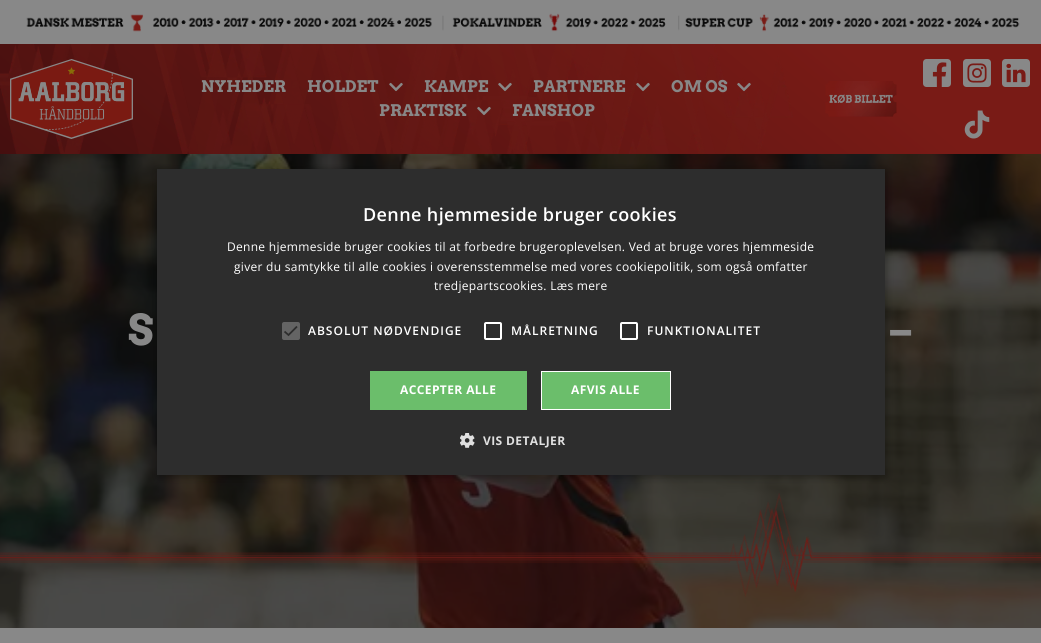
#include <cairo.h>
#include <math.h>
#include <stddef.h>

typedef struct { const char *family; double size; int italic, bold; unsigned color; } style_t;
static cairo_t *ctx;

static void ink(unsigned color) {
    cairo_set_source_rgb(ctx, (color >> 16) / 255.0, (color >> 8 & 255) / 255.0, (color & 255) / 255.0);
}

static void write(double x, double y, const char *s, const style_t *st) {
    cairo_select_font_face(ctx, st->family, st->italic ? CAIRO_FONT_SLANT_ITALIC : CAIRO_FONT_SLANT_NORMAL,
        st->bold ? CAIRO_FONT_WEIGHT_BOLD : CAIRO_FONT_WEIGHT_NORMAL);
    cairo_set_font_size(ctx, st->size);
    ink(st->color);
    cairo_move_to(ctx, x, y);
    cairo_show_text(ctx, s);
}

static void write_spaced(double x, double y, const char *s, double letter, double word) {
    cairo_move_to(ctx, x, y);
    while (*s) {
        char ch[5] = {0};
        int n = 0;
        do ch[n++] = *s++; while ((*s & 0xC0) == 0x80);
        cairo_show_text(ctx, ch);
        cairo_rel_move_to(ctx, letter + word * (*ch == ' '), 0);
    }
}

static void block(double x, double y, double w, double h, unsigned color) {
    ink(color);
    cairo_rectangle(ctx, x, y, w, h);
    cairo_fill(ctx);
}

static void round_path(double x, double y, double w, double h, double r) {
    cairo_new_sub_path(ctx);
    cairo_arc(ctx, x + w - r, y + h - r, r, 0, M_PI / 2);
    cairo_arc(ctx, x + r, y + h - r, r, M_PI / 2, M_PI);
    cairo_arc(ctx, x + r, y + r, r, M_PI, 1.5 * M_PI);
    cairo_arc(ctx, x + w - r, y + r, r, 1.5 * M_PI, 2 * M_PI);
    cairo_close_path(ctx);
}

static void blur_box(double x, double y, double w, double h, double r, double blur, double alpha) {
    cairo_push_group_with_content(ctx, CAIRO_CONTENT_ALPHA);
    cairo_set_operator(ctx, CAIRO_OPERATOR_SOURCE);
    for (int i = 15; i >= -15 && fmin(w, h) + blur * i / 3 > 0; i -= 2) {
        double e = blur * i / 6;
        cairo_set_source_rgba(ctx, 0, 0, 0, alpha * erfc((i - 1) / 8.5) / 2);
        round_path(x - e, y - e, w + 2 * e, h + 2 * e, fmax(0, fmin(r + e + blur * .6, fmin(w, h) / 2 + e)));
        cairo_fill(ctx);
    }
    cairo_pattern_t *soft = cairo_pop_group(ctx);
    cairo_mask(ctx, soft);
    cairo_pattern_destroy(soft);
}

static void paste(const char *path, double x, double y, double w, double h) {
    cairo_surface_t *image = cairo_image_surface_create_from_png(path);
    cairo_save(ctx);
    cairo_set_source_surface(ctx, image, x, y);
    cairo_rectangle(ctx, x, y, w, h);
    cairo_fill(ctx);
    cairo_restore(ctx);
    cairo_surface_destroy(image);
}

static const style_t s1 = {"Arvo", 16, 0, 1, 0x888888};
static const style_t s2 = {"Arvo", 42, 0, 1, 0x888888};

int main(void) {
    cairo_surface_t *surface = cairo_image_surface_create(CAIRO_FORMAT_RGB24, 1041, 643);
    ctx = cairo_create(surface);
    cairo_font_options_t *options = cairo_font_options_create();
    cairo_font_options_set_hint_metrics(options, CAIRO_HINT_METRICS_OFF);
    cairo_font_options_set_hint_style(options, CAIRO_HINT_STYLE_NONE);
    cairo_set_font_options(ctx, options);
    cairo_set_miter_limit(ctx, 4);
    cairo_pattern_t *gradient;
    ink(0x888888);
    cairo_paint(ctx);
    paste("pic1.png", 26, 13, 994, 19);
    gradient = cairo_pattern_create_linear(763, -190, 278, 388);
    cairo_pattern_add_color_stop_rgba(gradient, 0.17, 0.475, 0.106, 0.086, 1);
    cairo_pattern_add_color_stop_rgba(gradient, 1, 0.271, 0.059, 0.059, 1);
    cairo_set_source(ctx, gradient);
    cairo_pattern_destroy(gradient);
    cairo_rectangle(ctx, 0, 44, 1041, 110);
    cairo_fill(ctx);
    paste("pic2.png", 0, 44, 793, 110);
    paste("pic3.png", 10, 59, 123, 80);
    write(201, 92, "NYHEDER", &s1);
    write(307, 92, "HOLDET", &s1);
    paste("pic4.png", 389, 82, 14, 10);
    write(424, 92, "KAMPE", &s1);
    paste("pic5.png", 498, 82, 14, 10);
    write(533, 92, "PARTNERE", &s1);
    paste("pic6.png", 636, 82, 14, 10);
    write(671, 92, "OM OS", &s1);
    paste("pic7.png", 737, 82, 14, 10);
    write(379, 116, "PRAKTISK", &s1);
    paste("pic8.png", 477, 106, 14, 10);
    write(512, 116, "FANSHOP", &s1);
    paste("pic9.png", 825, 81, 72, 36);
    paste("pic10.png", 923, 59, 28, 28);
    paste("pic11.png", 963, 59, 28, 28);
    paste("pic12.png", 1002, 59, 28, 28);
    paste("pic13.png", 964, 110, 26, 29);
    paste("pic15.png", 0, 154, 1041, 474);
    ink(0x000000);
    blur_box(158, 171, 728, 306, 0, 4, 0.35);
    block(157, 169, 728, 306, 0x2d2d2d);
    cairo_select_font_face(ctx, "Open Sans SemiBold", CAIRO_FONT_SLANT_NORMAL, CAIRO_FONT_WEIGHT_NORMAL);
    cairo_set_font_size(ctx, 18);
    ink(0xffffff);
    write_spaced(363, 221, "Denne hjemmeside bruger cookies", 0.4, 0);
    cairo_select_font_face(ctx, "Open Sans", CAIRO_FONT_SLANT_NORMAL, CAIRO_FONT_WEIGHT_NORMAL);
    cairo_set_font_size(ctx, 12);
    write_spaced(227, 251, "Denne hjemmeside bruger cookies til at forbedre brugeroplevelsen. Ved at bruge vores hjemmeside", 0.3, 0);
    write_spaced(234, 271, "giver du samtykke til alle cookies i overensstemmelse med vores cookiepolitik, som også omfatter", 0.3, 0);
    write_spaced(434, 290, "tredjepartscookies. Læs mere", 0.3, 0);
    ink(0x646464);
    round_path(282, 322, 18, 18, 2);
    cairo_fill(ctx);
    cairo_new_path(ctx);
    cairo_move_to(ctx, 284.5, 331.5);
    cairo_line_to(ctx, 288.5, 335);
    cairo_line_to(ctx, 297, 326.5);
    ink(0x2d2d2d);
    cairo_set_line_width(ctx, 1.8);
    cairo_stroke(ctx);
    cairo_select_font_face(ctx, "Open Sans SemiBold", CAIRO_FONT_SLANT_NORMAL, CAIRO_FONT_WEIGHT_NORMAL);
    ink(0xffffff);
    write_spaced(308, 335, "ABSOLUT NØDVENDIGE", 1, 0);
    round_path(485, 323, 16, 16, 1);
    cairo_set_line_width(ctx, 2);
    cairo_stroke(ctx);
    write_spaced(511, 335, "MÅLRETNING", 1, 0);
    round_path(621, 323, 16, 16, 1);
    cairo_stroke(ctx);
    write_spaced(647, 335, "FUNKTIONALITET", 1, 0);
    block(370, 371, 157, 39, 0x6bbe6b);
    cairo_select_font_face(ctx, "Open Sans", CAIRO_FONT_SLANT_NORMAL, CAIRO_FONT_WEIGHT_BOLD);
    ink(0xffffff);
    write_spaced(400, 394, "ACCEPTER ALLE", 0.4, 0);
    ink(0x6bbe6b);
    cairo_rectangle(ctx, 541.5, 371.5, 129, 38);
    cairo_fill_preserve(ctx);
    ink(0xffffff);
    cairo_set_line_width(ctx, 1);
    cairo_stroke(ctx);
    write_spaced(571, 394, "AFVIS ALLE", 0.4, 0);
    paste("pic14.png", 460, 433, 15, 15);
    ink(0xe0e0e0);
    write_spaced(483, 445, "VIS DETALJER", 0.4, 0);
    write(128, 345, "S", &s2);
    write(888, 345, "–", &s2);
    paste("pic16.png", 0, 493, 1041, 104);
    cairo_surface_write_to_png(surface, "screenshot.png");
    cairo_font_options_destroy(options);
    cairo_destroy(ctx);
    cairo_surface_destroy(surface);
    return 0;
}
